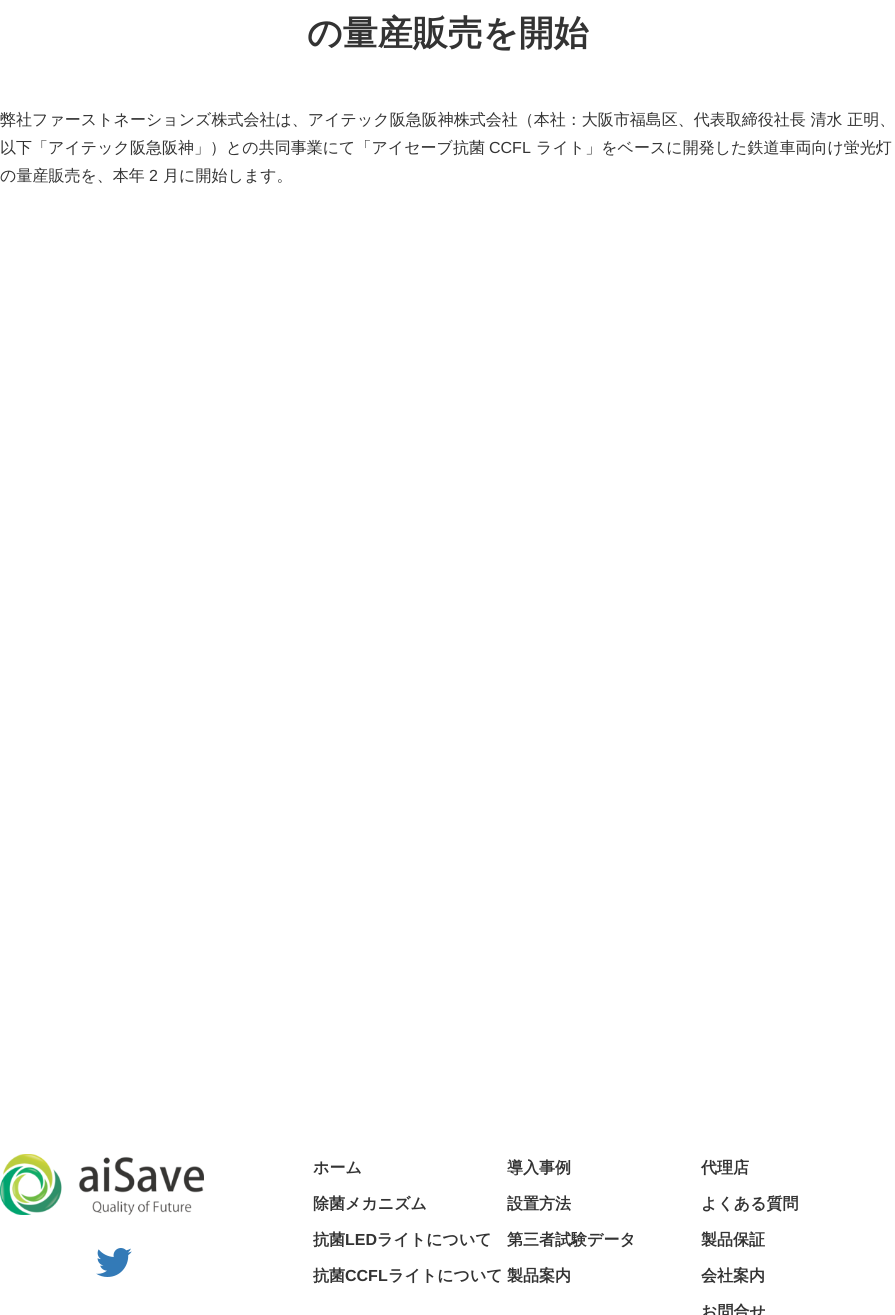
#include <cairo.h>
#include <math.h>
#include <stddef.h>

typedef struct { const char *family; double size; int italic, bold; unsigned color; } style_t;
static cairo_t *ctx;

static void ink(unsigned color) {
    cairo_set_source_rgb(ctx, (color >> 16) / 255.0, (color >> 8 & 255) / 255.0, (color & 255) / 255.0);
}

static void write(double x, double y, const char *s, const style_t *st) {
    cairo_select_font_face(ctx, st->family, st->italic ? CAIRO_FONT_SLANT_ITALIC : CAIRO_FONT_SLANT_NORMAL,
        st->bold ? CAIRO_FONT_WEIGHT_BOLD : CAIRO_FONT_WEIGHT_NORMAL);
    cairo_set_font_size(ctx, st->size);
    ink(st->color);
    cairo_move_to(ctx, x, y);
    cairo_show_text(ctx, s);
}

static void paste(const char *path, double x, double y, double w, double h) {
    cairo_surface_t *image = cairo_image_surface_create_from_png(path);
    cairo_save(ctx);
    cairo_set_source_surface(ctx, image, x, y);
    cairo_rectangle(ctx, x, y, w, h);
    cairo_fill(ctx);
    cairo_restore(ctx);
    cairo_surface_destroy(image);
}

static const style_t s1 = {"WenQuanYi Zen Hei", 35, 0, 1, 0x333333};
static const style_t s2 = {"WenQuanYi Zen Hei Medium", 16, 0, 0, 0x333333};
static const style_t s3 = {"Liberation Sans", 16, 0, 0, 0x333333};
static const style_t s4 = {"WenQuanYi Zen Hei", 16, 0, 1, 0x333333};
static const style_t s5 = {"Liberation Sans", 16, 0, 1, 0x333333};

int main(void) {
    cairo_surface_t *surface = cairo_image_surface_create(CAIRO_FORMAT_RGB24, 895, 1315);
    ctx = cairo_create(surface);
    cairo_font_options_t *options = cairo_font_options_create();
    cairo_font_options_set_hint_metrics(options, CAIRO_HINT_METRICS_OFF);
    cairo_font_options_set_hint_style(options, CAIRO_HINT_STYLE_NONE);
    cairo_set_font_options(ctx, options);
    cairo_set_miter_limit(ctx, 4);
    ink(0xffffff);
    cairo_paint(ctx);
    write(307, 45, "の量産販売を開始", &s1);
    write(0, 125, "弊社ファーストネーションズ株式会社は、アイテック阪急阪神株式会社（本社：大阪市福島区、代表取締役社長 清水 正明、", &s2);
    write(0, 153, "以下「アイテック阪急阪神」）との共同事業にて「アイセーブ抗菌", &s2);
    write(489, 153, "CCFL", &s3);
    write(536, 153, "ライト」をベースに開発した鉄道車両向け蛍光灯", &s2);
    write(0, 181, "の量産販売を、本年", &s2);
    write(149, 181, "2", &s3);
    write(163, 181, "月に開始します。", &s2);
    paste("pic1.png", 0, 1154, 204, 61);
    paste("pic2.png", 96, 1248, 36, 29);
    write(313, 1173, "ホーム", &s4);
    write(313, 1209, "除菌メカニズム", &s4);
    write(313, 1245, "抗菌", &s4);
    write(345, 1245, "LED", &s5);
    write(377, 1245, "ライトについて", &s4);
    write(313, 1281, "抗菌", &s4);
    write(345, 1281, "CCFL", &s5);
    write(388, 1281, "ライトについて", &s4);
    write(507, 1173, "導入事例", &s4);
    write(507, 1209, "設置方法", &s4);
    write(507, 1245, "第三者試験データ", &s4);
    write(507, 1281, "製品案内", &s4);
    write(701, 1173, "代理店", &s4);
    write(701, 1209, "よくある質問", &s4);
    write(701, 1245, "製品保証", &s4);
    write(701, 1281, "会社案内", &s4);
    write(701, 1317, "お問合せ", &s4);
    cairo_surface_write_to_png(surface, "screenshot.png");
    cairo_font_options_destroy(options);
    cairo_destroy(ctx);
    cairo_surface_destroy(surface);
    return 0;
}
